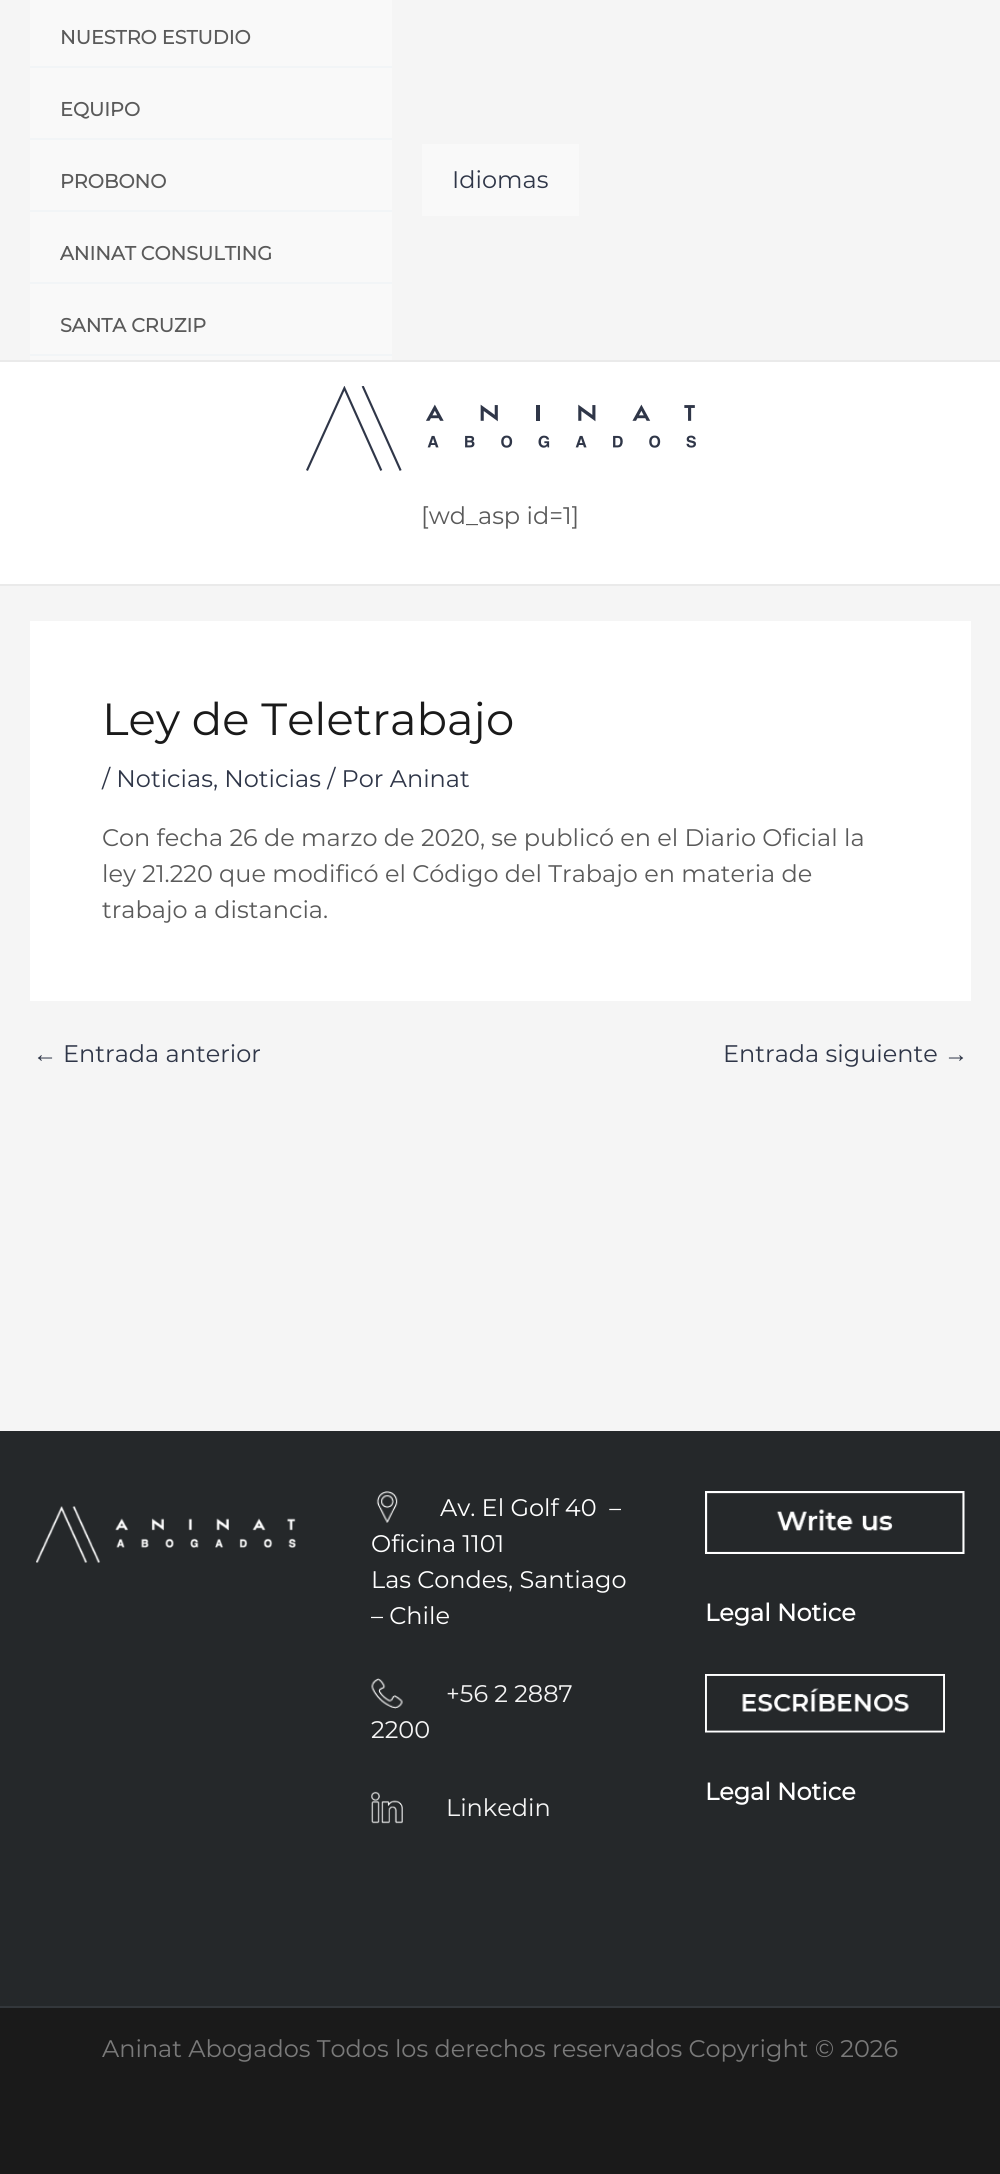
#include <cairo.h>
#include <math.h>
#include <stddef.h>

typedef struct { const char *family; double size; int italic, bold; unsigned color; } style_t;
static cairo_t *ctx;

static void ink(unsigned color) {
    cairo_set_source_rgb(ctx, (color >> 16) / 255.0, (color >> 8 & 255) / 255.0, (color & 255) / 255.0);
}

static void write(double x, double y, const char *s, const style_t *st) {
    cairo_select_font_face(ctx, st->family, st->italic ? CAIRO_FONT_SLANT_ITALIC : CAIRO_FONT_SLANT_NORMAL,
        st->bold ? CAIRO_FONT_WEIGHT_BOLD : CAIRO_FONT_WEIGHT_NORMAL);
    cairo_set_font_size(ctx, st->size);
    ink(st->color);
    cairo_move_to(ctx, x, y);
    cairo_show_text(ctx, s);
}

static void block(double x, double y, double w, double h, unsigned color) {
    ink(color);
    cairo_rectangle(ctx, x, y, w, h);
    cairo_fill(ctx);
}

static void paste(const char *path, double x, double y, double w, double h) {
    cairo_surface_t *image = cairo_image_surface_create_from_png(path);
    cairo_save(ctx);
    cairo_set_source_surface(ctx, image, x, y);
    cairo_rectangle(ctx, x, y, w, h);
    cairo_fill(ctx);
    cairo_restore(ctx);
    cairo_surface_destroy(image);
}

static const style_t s1 = {"Montserrat", 19.25, 0, 1, 0x5a5a5a};
static const style_t s2 = {"Montserrat Thin", 24, 0, 0, 0x2f3648};
static const style_t s3 = {"Montserrat Thin", 24, 0, 0, 0x5a5a5a};
static const style_t s4 = {"Montserrat Thin", 45, 0, 0, 0x1a1a1a};
static const style_t s5 = {"Liberation Sans", 24, 0, 0, 0x2f3648};
static const style_t s6 = {"Montserrat Thin", 24, 0, 0, 0xffffff};
static const style_t s7 = {"Montserrat Thin", 24, 0, 0, 0xf5f5f5};
static const style_t s8 = {"Montserrat", 24, 0, 1, 0xffffff};
static const style_t s9 = {"Montserrat Thin", 24, 0, 0, 0x7a7a7a};

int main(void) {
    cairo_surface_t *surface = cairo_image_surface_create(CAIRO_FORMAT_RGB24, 1000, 2174);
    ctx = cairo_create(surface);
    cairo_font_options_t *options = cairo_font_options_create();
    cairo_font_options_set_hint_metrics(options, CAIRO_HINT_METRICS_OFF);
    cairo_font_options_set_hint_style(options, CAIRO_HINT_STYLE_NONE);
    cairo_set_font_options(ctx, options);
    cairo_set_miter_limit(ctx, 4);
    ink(0xf5f5f5);
    cairo_paint(ctx);
    block(0, 360, 1000, 2, 0xeaeaea);
    block(30, 0, 362, 360, 0xf9f9f9);
    block(30, 66, 362, 2, 0xf2f5f7);
    write(60, 44, "NUESTRO ESTUDIO", &s1);
    block(30, 138, 362, 2, 0xf2f5f7);
    write(60, 116, "EQUIPO", &s1);
    block(30, 210, 362, 2, 0xf2f5f7);
    write(60, 188, "PROBONO", &s1);
    block(30, 282, 362, 2, 0xf2f5f7);
    write(60, 260, "ANINAT CONSULTING", &s1);
    block(30, 354, 362, 2, 0xf2f5f7);
    write(60, 332, "SANTA CRUZIP", &s1);
    block(422, 144, 157, 72, 0xf9f9f9);
    write(452, 188, "Idiomas", &s2);
    block(0, 362, 1000, 222, 0xffffff);
    paste("pic1.png", 306, 386, 390, 85);
    block(0, 584, 1000, 2, 0xeaeaea);
    write(421, 524, "[wd_asp id=1]", &s3);
    block(30, 621, 941, 380, 0xffffff);
    write(102, 735, "Ley de Teletrabajo", &s4);
    write(102, 787, "/ Noticias, Noticias / Por Aninat", &s2);
    write(102, 846, "Con fecha 26 de marzo de 2020, se publicó en el Diario Oficial la", &s3);
    write(102, 882, "ley 21.220 que modificó el Código del Trabajo en materia de", &s3);
    write(102, 918, "trabajo a distancia.", &s3);
    write(33, 1062, "←", &s5);
    write(63, 1062, "Entrada anterior", &s2);
    write(723, 1062, "Entrada siguiente", &s2);
    write(944, 1062, "→", &s5);
    block(0, 2008, 1000, 166, 0x1a1a1a);
    block(0, 1431, 1000, 575, 0x25282a);
    paste("pic2.png", 36, 1506, 260, 57);
    paste("pic3.png", 376, 1491, 22, 32);
    write(440, 1516, "Av. El Golf 40  –", &s6);
    write(371, 1552, "Oficina 1101", &s6);
    write(371, 1588, "Las Condes, Santiago", &s6);
    write(371, 1624, "– Chile", &s6);
    paste("pic4.png", 371, 1678, 32, 31);
    write(446, 1702, "+56 2 2887", &s7);
    write(371, 1738, "2200", &s7);
    paste("pic5.png", 371, 1791, 32, 33);
    write(446, 1816, "Linkedin", &s7);
    paste("pic6.png", 705, 1491, 260, 63);
    write(705, 1621, "Legal Notice", &s8);
    paste("pic7.png", 705, 1674, 240, 59);
    write(705, 1800, "Legal Notice", &s8);
    block(0, 2006, 1000, 2, 0x33373b);
    write(102, 2057, "Aninat Abogados Todos los derechos reservados Copyright © 2026", &s9);
    cairo_surface_write_to_png(surface, "screenshot.png");
    cairo_font_options_destroy(options);
    cairo_destroy(ctx);
    cairo_surface_destroy(surface);
    return 0;
}
